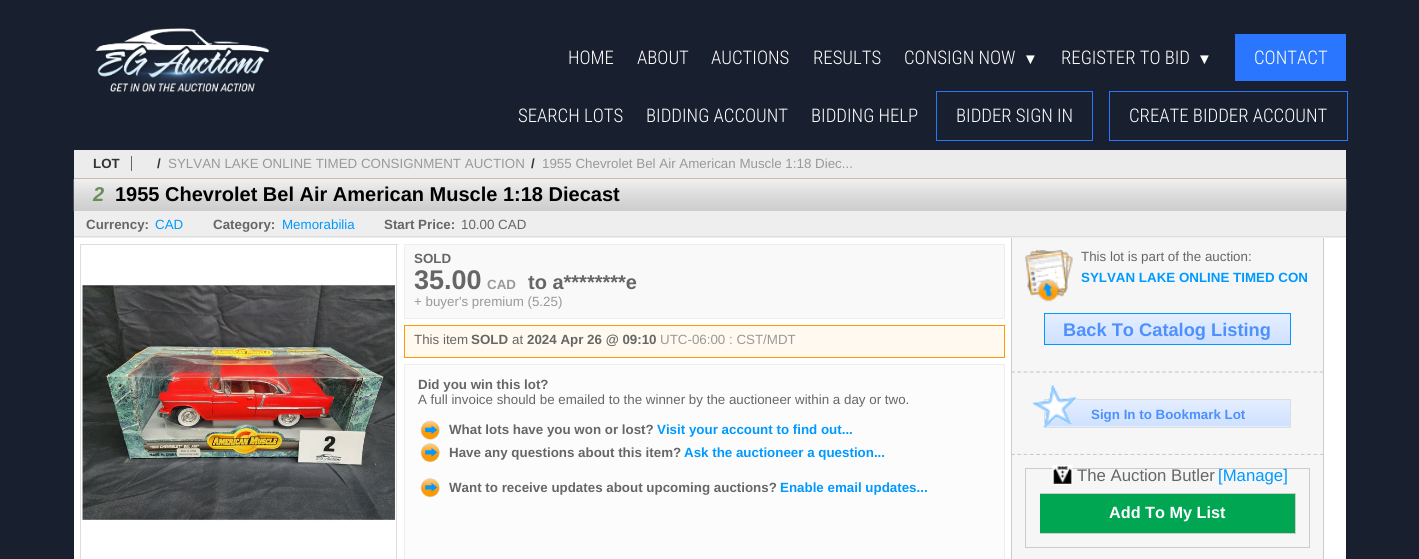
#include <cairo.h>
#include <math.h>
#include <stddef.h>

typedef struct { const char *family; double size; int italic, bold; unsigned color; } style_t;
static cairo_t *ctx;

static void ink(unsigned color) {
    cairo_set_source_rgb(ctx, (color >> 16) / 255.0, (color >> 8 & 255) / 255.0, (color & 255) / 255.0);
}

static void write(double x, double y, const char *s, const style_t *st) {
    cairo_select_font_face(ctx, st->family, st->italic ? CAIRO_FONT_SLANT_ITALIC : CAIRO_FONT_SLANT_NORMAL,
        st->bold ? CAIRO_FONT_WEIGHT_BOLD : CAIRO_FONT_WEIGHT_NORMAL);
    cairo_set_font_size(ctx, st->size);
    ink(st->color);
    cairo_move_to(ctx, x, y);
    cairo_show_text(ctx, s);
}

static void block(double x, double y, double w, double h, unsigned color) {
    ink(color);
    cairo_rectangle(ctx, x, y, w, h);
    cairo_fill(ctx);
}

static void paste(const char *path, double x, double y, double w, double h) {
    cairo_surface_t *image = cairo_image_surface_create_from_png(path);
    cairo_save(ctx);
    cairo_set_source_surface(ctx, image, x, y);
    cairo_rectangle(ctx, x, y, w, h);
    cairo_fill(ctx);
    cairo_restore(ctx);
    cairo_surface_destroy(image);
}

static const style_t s1 = {"Roboto Condensed Light", 18.75, 0, 0, 0xffffff};
static const style_t s2 = {"Liberation Sans", 15, 0, 0, 0xffffff};
static const style_t s3 = {"Liberation Sans", 13.35, 0, 1, 0x333333};
static const style_t s4 = {"Liberation Sans", 13.35, 0, 0, 0x999999};
static const style_t s5 = {"Liberation Sans", 20, 1, 1, 0x698c5b};
static const style_t s6 = {"Liberation Sans", 20, 0, 1, 0x000000};
static const style_t s7 = {"Liberation Sans", 13.35, 0, 1, 0x666666};
static const style_t s8 = {"Liberation Sans", 13.35, 0, 0, 0x0099ff};
static const style_t s9 = {"Liberation Sans", 13.35, 0, 0, 0x666666};
static const style_t s10 = {"Liberation Sans", 27, 0, 1, 0x666666};
static const style_t s11 = {"Liberation Sans", 13.35, 0, 1, 0x999999};
static const style_t s12 = {"Liberation Sans", 20, 0, 1, 0x666666};
static const style_t s13 = {"Liberation Sans", 13.35, 0, 1, 0x0099ff};
static const style_t s14 = {"Liberation Sans", 18.25, 0, 1, 0x4d90fe};
static const style_t s15 = {"Liberation Sans", 13.35, 0, 1, 0x4d90fe};
static const style_t s16 = {"Liberation Sans", 16.75, 0, 0, 0x666666};
static const style_t s17 = {"Liberation Sans", 16.75, 0, 0, 0x0099ff};
static const style_t s18 = {"Liberation Sans", 16.25, 0, 1, 0xffffff};

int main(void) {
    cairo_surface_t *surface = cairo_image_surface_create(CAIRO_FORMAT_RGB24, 1419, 559);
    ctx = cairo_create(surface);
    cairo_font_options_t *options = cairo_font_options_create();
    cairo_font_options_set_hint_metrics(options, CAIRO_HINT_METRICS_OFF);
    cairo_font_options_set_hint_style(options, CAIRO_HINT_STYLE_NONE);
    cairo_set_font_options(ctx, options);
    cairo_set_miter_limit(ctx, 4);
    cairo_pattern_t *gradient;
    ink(0x181f2e);
    cairo_paint(ctx);
    paste("pic1.png", 95, 28, 175, 64);
    write(568, 64, "HOME", &s1);
    write(637, 64, "ABOUT", &s1);
    write(711, 64, "AUCTIONS", &s1);
    write(813, 64, "RESULTS", &s1);
    write(904, 64, "CONSIGN NOW", &s1);
    write(1023, 64, "▼", &s2);
    write(1061, 64, "REGISTER TO BID", &s1);
    write(1197, 64, "▼", &s2);
    block(1235, 34, 111, 47, 0x2b76ff);
    write(1254, 64, "CONTACT", &s1);
    write(518, 122, "SEARCH LOTS", &s1);
    write(646, 122, "BIDDING ACCOUNT", &s1);
    write(811, 122, "BIDDING HELP", &s1);
    write(956, 122, "BIDDER SIGN IN", &s1);
    cairo_rectangle(ctx, 936.5, 91.5, 156, 49);
    ink(0x2b76ff);
    cairo_set_line_width(ctx, 1);
    cairo_stroke(ctx);
    write(1129, 122, "CREATE BIDDER ACCOUNT", &s1);
    cairo_rectangle(ctx, 1109.5, 91.5, 238, 49);
    ink(0x2b76ff);
    cairo_stroke(ctx);
    block(74, 238, 1272, 321, 0xffffff);
    block(74, 150, 1272, 28, 0xececec);
    block(74, 178, 1272, 1, 0xbbbbbb);
    write(93, 168, "LOT", &s3);
    block(131, 156, 1, 15, 0x666666);
    write(157, 168, "/", &s3);
    write(168, 168, "SYLVAN LAKE ONLINE TIMED CONSIGNMENT AUCTION", &s4);
    write(531, 168, "/", &s3);
    write(542, 168, "1955 Chevrolet Bel Air American Muscle 1:18 Diec...", &s4);
    paste("pic2.png", 73, 178, 1274, 34);
    write(93, 201, "2", &s5);
    write(115, 201, "1955 Chevrolet Bel Air American Muscle 1:18 Diecast", &s6);
    block(74, 211, 1272, 27, 0xeeeeee);
    block(74, 236, 1272, 1, 0xdddddd);
    write(86, 229, "Currency:", &s7);
    write(155, 229, "CAD", &s8);
    write(213, 229, "Category:", &s7);
    write(282, 229, "Memorabilia", &s8);
    write(384, 229, "Start Price:", &s7);
    write(461, 229, "10.00 CAD", &s9);
    block(80, 244, 318, 1, 0xdddddd);
    block(396, 244, 1, 315, 0xdddddd);
    block(80, 244, 1, 315, 0xdddddd);
    paste("pic3.png", 82, 284, 313, 237);
    ink(0xf9f9f9);
    cairo_rectangle(ctx, 404.5, 244.5, 600, 74);
    cairo_fill_preserve(ctx);
    ink(0xeeeeee);
    cairo_stroke(ctx);
    write(414, 263, "SOLD", &s7);
    write(414, 289, "35.00", &s10);
    write(487, 289, "CAD", &s11);
    write(528, 289, "to a********e", &s12);
    write(414, 306, "+ buyer's premium (5.25)", &s4);
    ink(0xfff9f0);
    cairo_rectangle(ctx, 404.5, 325.5, 600, 32);
    cairo_fill_preserve(ctx);
    ink(0xff9900);
    cairo_stroke(ctx);
    write(414, 344, "This item", &s9);
    write(471, 344, "SOLD", &s7);
    write(512, 344, "at", &s9);
    write(527, 344, "2024 Apr 26 @ 09:10", &s7);
    write(660, 344, "UTC-06:00 : CST/MDT", &s4);
    ink(0xfcfcfc);
    cairo_rectangle(ctx, 404.5, 364.5, 600, 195);
    cairo_fill_preserve(ctx);
    ink(0xeeeeee);
    cairo_stroke(ctx);
    write(418, 389, "Did you win this lot?", &s7);
    write(418, 404, "A full invoice should be emailed to the winner by the auctioneer within a day or two.", &s9);
    paste("pic4.png", 420, 420, 20, 20);
    write(449, 434, "What lots have you won or lost?", &s7);
    write(657, 434, "Visit your account to find out...", &s13);
    paste("pic5.png", 420, 443, 20, 20);
    write(449, 457, "Have any questions about this item?", &s7);
    write(684, 457, "Ask the auctioneer a question...", &s13);
    paste("pic5.png", 420, 478, 20, 20);
    write(449, 492, "Want to receive updates about upcoming auctions?", &s7);
    write(780, 492, "Enable email updates...", &s13);
    block(1012, 238, 311, 217, 0xf6f6f6);
    block(1323, 238, 1, 217, 0xcccccc);
    cairo_new_path(ctx);
    cairo_move_to(ctx, 1011, 372);
    cairo_line_to(ctx, 1324, 372);
    cairo_set_line_width(ctx, 1.2);
    cairo_set_dash(ctx, (double[]){3.75, 2.55}, 2, 0);
    cairo_stroke(ctx);
    block(1011, 238, 1, 135, 0xcccccc);
    paste("pic6.png", 1025, 250, 48, 52);
    write(1081, 261, "This lot is part of the auction:", &s9);
    write(1081, 282, "SYLVAN LAKE ONLINE TIMED CON", &s13);
    gradient = cairo_pattern_create_linear(1168, 314, 1168, 344);
    cairo_pattern_add_color_stop_rgba(gradient, 0, 0.894, 0.933, 1, 1);
    cairo_pattern_add_color_stop_rgba(gradient, 1, 0.812, 0.882, 1, 1);
    cairo_set_source(ctx, gradient);
    cairo_pattern_destroy(gradient);
    cairo_rectangle(ctx, 1045, 314, 245, 30);
    cairo_fill(ctx);
    cairo_rectangle(ctx, 1044.5, 313.5, 246, 31);
    ink(0x0099ff);
    cairo_set_line_width(ctx, 1);
    cairo_set_dash(ctx, NULL, 0, 0);
    cairo_stroke(ctx);
    write(1063, 336, "Back To Catalog Listing", &s14);
    cairo_new_path(ctx);
    cairo_move_to(ctx, 1011, 454.5);
    cairo_line_to(ctx, 1324, 454.5);
    ink(0xcccccc);
    cairo_set_line_width(ctx, 1.2);
    cairo_set_dash(ctx, (double[]){3.75, 2.55}, 2, 0);
    cairo_stroke(ctx);
    block(1011, 373, 1, 186, 0xcccccc);
    gradient = cairo_pattern_create_linear(1168, 400, 1168, 426);
    cairo_pattern_add_color_stop_rgba(gradient, 0, 0.894, 0.933, 1, 1);
    cairo_pattern_add_color_stop_rgba(gradient, 1, 0.812, 0.882, 1, 1);
    cairo_set_source(ctx, gradient);
    cairo_pattern_destroy(gradient);
    cairo_rectangle(ctx, 1045, 400, 245, 26);
    cairo_fill(ctx);
    gradient = cairo_pattern_create_linear(1168, 426, 1168, 453);
    cairo_pattern_add_color_stop_rgba(gradient, 0, 0.894, 0.933, 1, 1);
    cairo_pattern_add_color_stop_rgba(gradient, 1, 0.812, 0.882, 1, 1);
    cairo_set_source(ctx, gradient);
    cairo_pattern_destroy(gradient);
    cairo_rectangle(ctx, 1044, 426, 247, 1);
    cairo_fill(ctx);
    cairo_rectangle(ctx, 1044.5, 399.5, 246, 28);
    ink(0xdddddd);
    cairo_set_line_width(ctx, 1);
    cairo_set_dash(ctx, NULL, 0, 0);
    cairo_stroke(ctx);
    paste("pic7.png", 1032, 384, 45, 45);
    write(1091, 419, "Sign In to Bookmark Lot", &s15);
    block(1012, 455, 311, 104, 0xf6f6f6);
    block(1323, 455, 1, 104, 0xcccccc);
    cairo_rectangle(ctx, 1025.5, 468.5, 284, 79);
    cairo_stroke(ctx);
    paste("pic8.png", 1052, 465, 21, 20);
    write(1077, 481, "The Auction Butler", &s16);
    write(1218, 481, "[Manage]", &s17);
    block(1040, 494, 255, 39, 0x00a651);
    block(1040, 493, 256, 1, 0xcccccc);
    block(1295, 493, 1, 41, 0xcccccc);
    block(1040, 533, 256, 1, 0xcccccc);
    write(1109, 518, "Add To My List", &s18);
    cairo_surface_write_to_png(surface, "screenshot.png");
    cairo_font_options_destroy(options);
    cairo_destroy(ctx);
    cairo_surface_destroy(surface);
    return 0;
}
